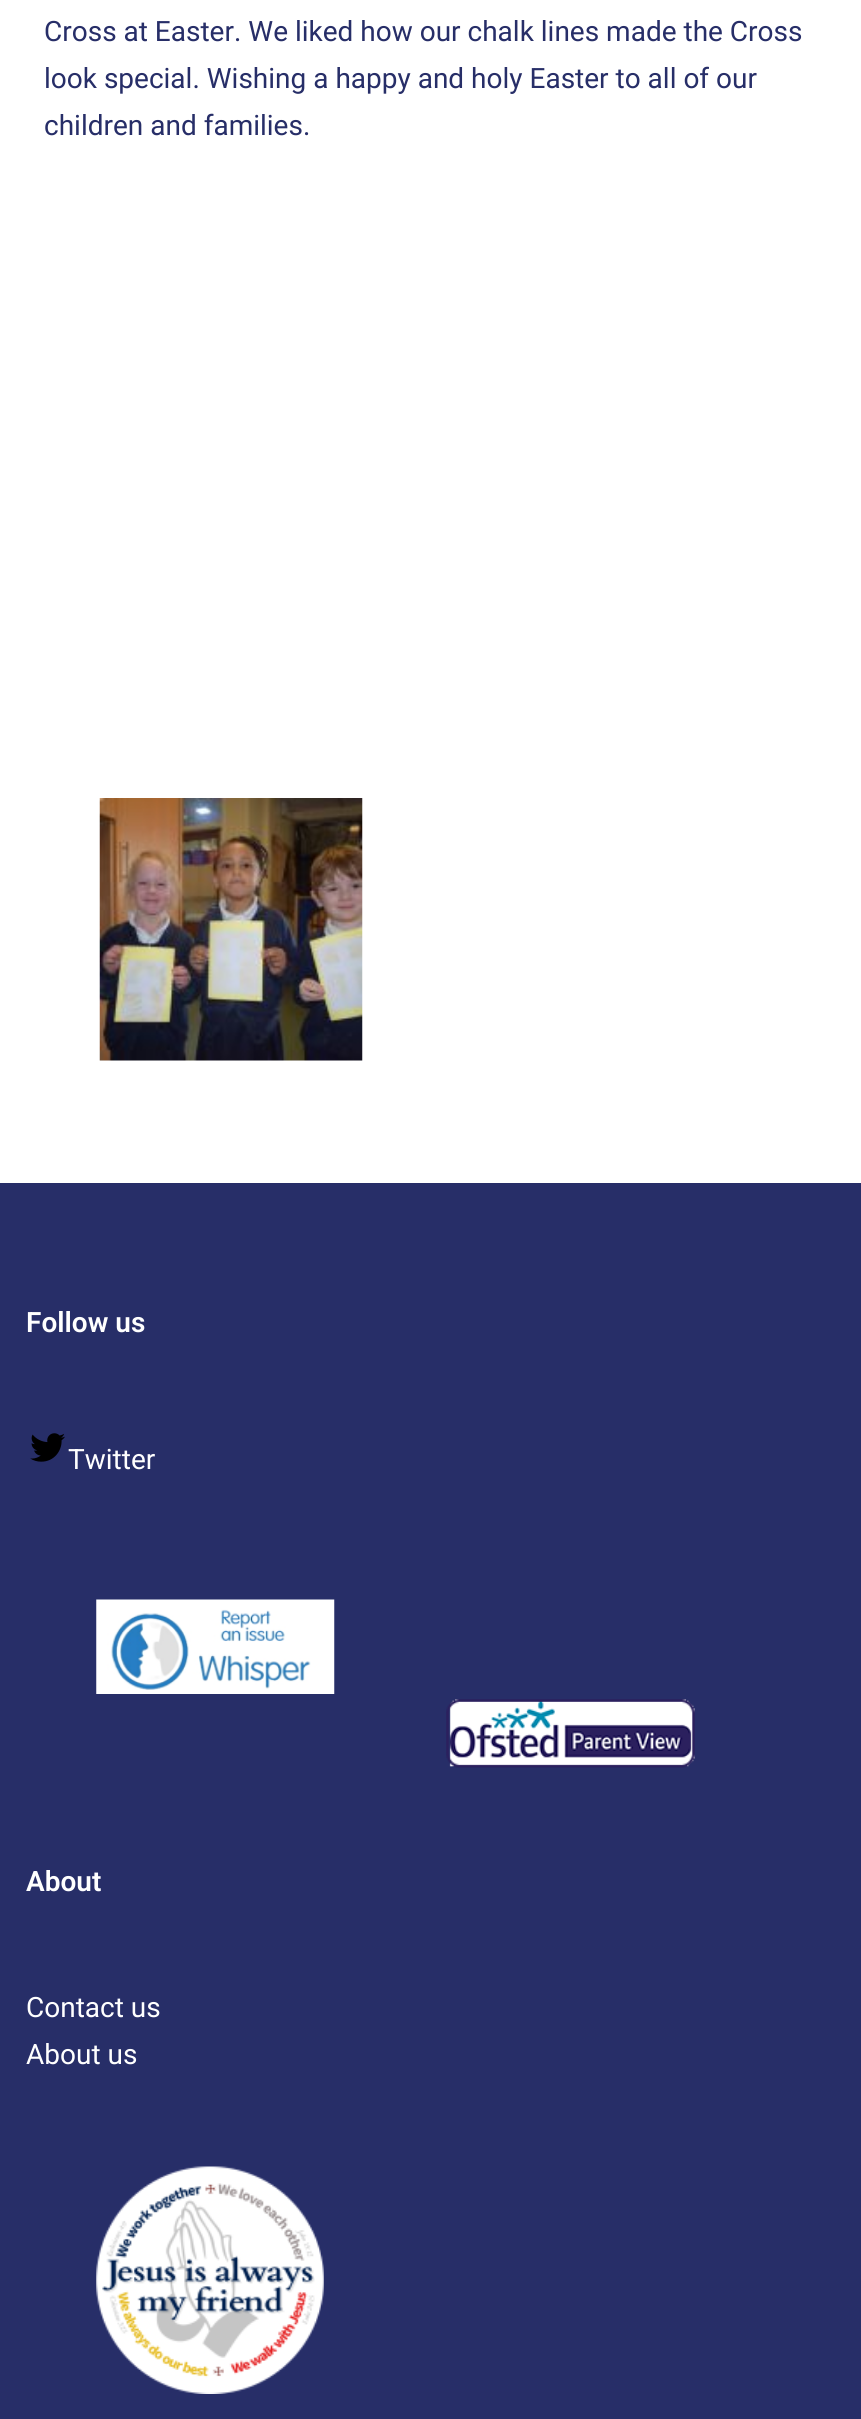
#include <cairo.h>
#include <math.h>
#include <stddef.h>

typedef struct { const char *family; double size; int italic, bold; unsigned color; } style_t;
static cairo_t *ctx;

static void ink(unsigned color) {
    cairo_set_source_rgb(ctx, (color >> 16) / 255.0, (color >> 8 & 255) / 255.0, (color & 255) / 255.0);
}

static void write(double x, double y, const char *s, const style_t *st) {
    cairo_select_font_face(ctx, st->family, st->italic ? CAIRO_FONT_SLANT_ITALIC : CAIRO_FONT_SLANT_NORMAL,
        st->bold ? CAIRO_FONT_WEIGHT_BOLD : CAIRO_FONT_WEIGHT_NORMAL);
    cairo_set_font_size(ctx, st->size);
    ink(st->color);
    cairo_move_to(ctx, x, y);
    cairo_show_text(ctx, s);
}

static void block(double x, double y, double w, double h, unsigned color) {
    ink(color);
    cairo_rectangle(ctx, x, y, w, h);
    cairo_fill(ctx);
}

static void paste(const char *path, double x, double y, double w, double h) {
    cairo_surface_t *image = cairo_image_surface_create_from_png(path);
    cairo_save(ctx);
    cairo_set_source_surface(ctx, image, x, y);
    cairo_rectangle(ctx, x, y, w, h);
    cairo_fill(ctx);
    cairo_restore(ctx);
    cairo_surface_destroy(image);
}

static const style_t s1 = {"Roboto", 28, 0, 0, 0x272e68};
static const style_t s2 = {"Roboto SemiBold", 28, 0, 0, 0xffffff};
static const style_t s3 = {"Roboto", 28, 0, 0, 0xffffff};

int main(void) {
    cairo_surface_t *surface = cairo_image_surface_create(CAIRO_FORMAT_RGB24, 861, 2419);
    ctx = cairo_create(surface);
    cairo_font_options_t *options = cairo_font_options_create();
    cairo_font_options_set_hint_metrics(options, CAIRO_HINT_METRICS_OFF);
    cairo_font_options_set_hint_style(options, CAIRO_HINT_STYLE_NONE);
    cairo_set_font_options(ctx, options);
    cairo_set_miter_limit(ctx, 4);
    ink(0xffffff);
    cairo_paint(ctx);
    write(44, 41, "Cross at Easter. We liked how our chalk lines made the Cross", &s1);
    write(44, 88, "look special. Wishing a happy and holy Easter to all of our", &s1);
    write(44, 135, "children and families.", &s1);
    paste("pic1.png", 99, 798, 264, 263);
    block(0, 1183, 861, 1236, 0x272e68);
    write(26, 1332, "Follow us", &s2);
    paste("pic2.png", 30, 1433, 35, 29);
    write(68, 1469, "Twitter", &s3);
    paste("pic3.png", 96, 1599, 239, 95);
    paste("pic4.png", 446, 1699, 249, 69);
    write(26, 1891, "About", &s2);
    write(26, 2017, "Contact us", &s3);
    write(26, 2064, "About us", &s3);
    paste("pic5.png", 96, 2166, 228, 228);
    cairo_surface_write_to_png(surface, "screenshot.png");
    cairo_font_options_destroy(options);
    cairo_destroy(ctx);
    cairo_surface_destroy(surface);
    return 0;
}
